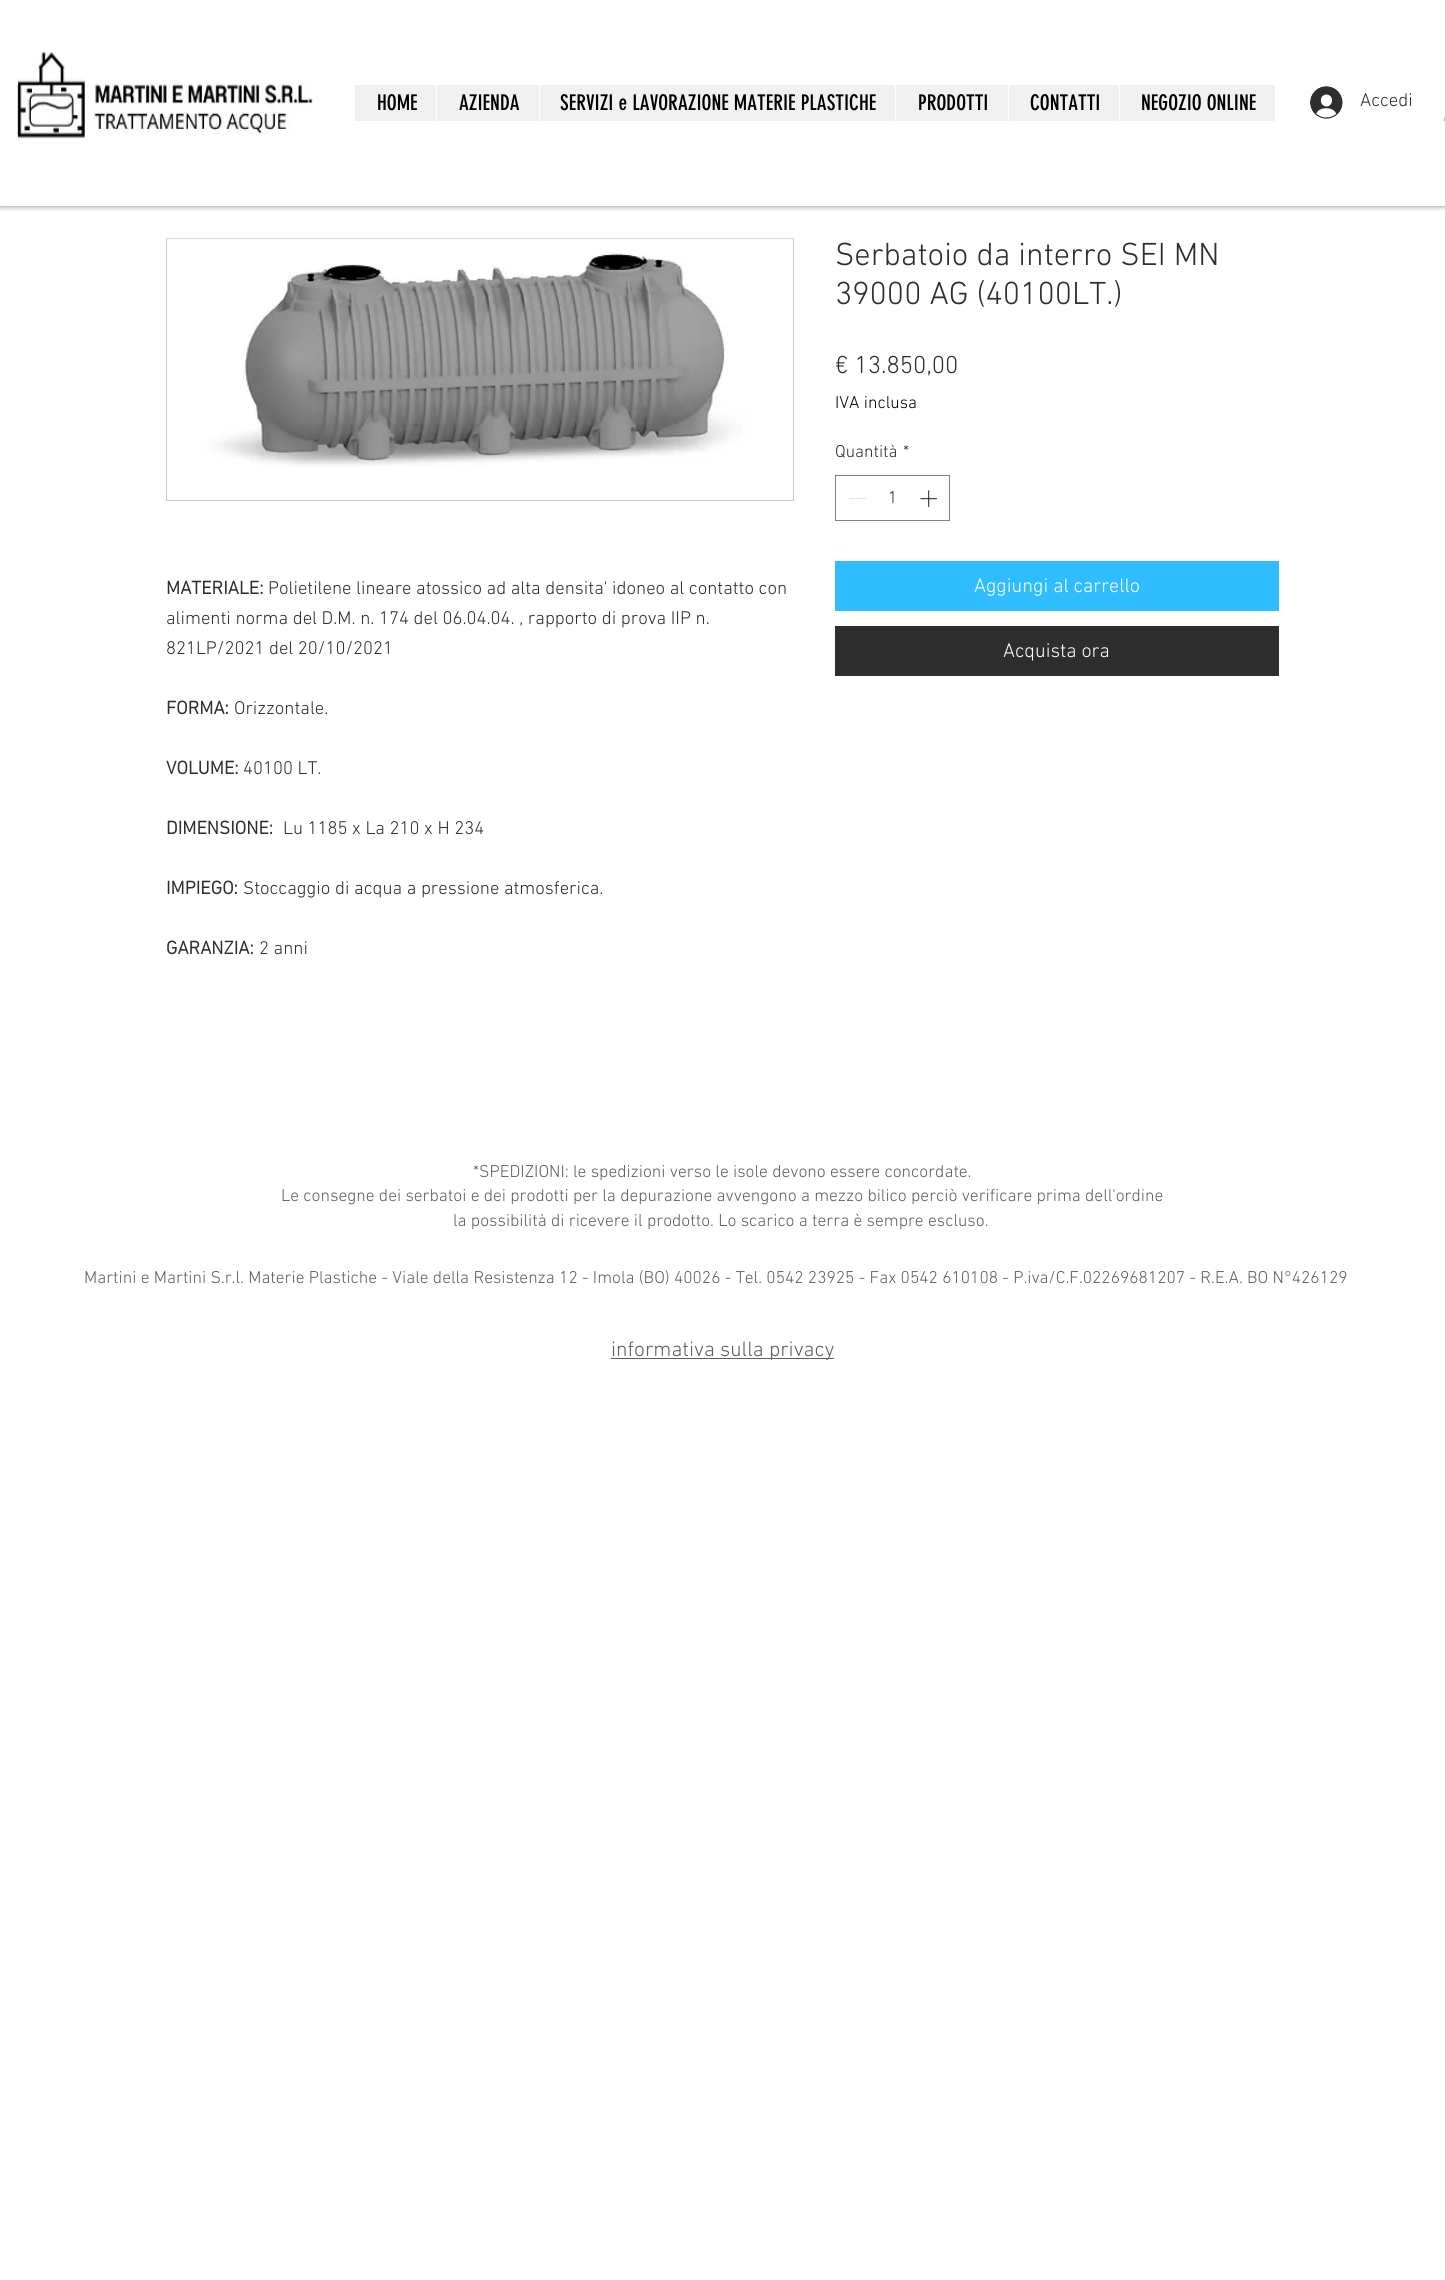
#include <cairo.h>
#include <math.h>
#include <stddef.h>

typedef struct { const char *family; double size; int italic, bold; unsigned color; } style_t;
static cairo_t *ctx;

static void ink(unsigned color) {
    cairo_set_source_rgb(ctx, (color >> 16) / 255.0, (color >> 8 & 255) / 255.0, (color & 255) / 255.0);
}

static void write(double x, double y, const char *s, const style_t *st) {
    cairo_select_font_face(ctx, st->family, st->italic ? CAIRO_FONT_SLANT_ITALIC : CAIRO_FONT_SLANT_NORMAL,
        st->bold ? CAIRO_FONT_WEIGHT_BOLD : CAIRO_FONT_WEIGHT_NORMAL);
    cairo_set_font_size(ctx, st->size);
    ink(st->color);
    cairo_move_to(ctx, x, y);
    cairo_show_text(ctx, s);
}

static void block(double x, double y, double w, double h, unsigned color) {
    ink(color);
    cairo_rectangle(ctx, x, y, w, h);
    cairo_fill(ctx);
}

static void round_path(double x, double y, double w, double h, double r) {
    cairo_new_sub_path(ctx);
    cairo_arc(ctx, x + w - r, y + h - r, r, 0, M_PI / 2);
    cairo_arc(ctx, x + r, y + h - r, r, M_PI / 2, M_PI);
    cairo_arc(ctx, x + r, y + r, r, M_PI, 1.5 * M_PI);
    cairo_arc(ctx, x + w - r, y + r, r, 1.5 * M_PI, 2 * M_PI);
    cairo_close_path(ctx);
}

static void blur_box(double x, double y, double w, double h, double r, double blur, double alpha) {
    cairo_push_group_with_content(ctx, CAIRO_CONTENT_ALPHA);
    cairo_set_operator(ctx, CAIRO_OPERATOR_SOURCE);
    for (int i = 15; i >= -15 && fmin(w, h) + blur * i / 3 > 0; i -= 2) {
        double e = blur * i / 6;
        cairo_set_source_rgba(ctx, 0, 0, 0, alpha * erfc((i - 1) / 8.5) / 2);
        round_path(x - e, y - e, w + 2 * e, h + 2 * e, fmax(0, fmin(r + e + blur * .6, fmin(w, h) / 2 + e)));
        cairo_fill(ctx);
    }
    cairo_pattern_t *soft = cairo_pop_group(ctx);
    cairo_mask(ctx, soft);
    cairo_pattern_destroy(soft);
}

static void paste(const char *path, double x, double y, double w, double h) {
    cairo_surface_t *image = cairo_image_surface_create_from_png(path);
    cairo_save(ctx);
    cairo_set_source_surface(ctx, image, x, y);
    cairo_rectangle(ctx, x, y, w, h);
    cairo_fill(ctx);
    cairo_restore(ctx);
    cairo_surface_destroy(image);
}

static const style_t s1 = {"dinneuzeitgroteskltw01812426", 21.25, 0, 0, 0x000000};
static const style_t s2 = {"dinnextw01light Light", 18.75, 0, 0, 0x2f2e2e};
static const style_t s3 = {"dinnextw01light Light", 32.5, 0, 0, 0x2f2e2e};
static const style_t s4 = {"dinnextw01light Light", 25, 0, 0, 0x2f2e2e};
static const style_t s5 = {"dinnextw01light Light", 17.5, 0, 0, 0x000000};
static const style_t s6 = {"dinnextw01light Light", 17.5, 0, 0, 0x2f2e2e};
static const style_t s7 = {"dinnextw01light Light", 20, 0, 0, 0xffffff};
static const style_t s8 = {"dinnextw01light", 18.75, 0, 1, 0x2f2e2e};
static const style_t s9 = {"dinnextw01light Light", 17.5, 0, 0, 0x605e5e};
static const style_t s10 = {"dinnextw01light Light", 21.25, 0, 0, 0x605e5e};

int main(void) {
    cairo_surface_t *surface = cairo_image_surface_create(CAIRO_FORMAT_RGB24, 1445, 2280);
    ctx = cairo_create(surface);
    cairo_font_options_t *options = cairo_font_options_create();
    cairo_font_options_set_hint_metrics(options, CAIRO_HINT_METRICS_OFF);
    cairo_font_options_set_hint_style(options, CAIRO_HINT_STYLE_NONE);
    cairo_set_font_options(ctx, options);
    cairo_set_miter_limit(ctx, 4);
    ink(0xffffff);
    cairo_paint(ctx);
    cairo_save(ctx);
    cairo_rectangle(ctx, 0, 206, 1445, 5);
    cairo_clip(ctx);
    ink(0x000000);
    blur_box(0, 0, 1445, 206, 0, 3, 0.5);
    cairo_restore(ctx);
    paste("pic1.png", 17, 51, 296, 88);
    block(355, 85, 920, 36, 0xf1f1f1);
    write(377, 110, "HOME", &s1);
    block(436, 85, 1, 36, 0xffffff);
    write(459, 110, "AZIENDA", &s1);
    block(539, 85, 1, 36, 0xffffff);
    write(560, 110, "SERVIZI e LAVORAZIONE MATERIE PLASTICHE", &s1);
    block(895, 85, 1, 36, 0xffffff);
    write(918, 110, "PRODOTTI", &s1);
    block(1008, 85, 1, 36, 0xffffff);
    write(1030, 110, "CONTATTI", &s1);
    block(1119, 85, 1, 36, 0xffffff);
    write(1141, 110, "NEGOZIO ONLINE", &s1);
    paste("pic2.png", 1310, 86, 33, 33);
    write(1360, 106, "Accedi", &s2);
    paste("pic3.png", 1444, 116, 1, 5);
    write(835, 265, "Serbatoio da interro SEI MN", &s3);
    write(835, 304, "39000 AG (40100LT.)", &s3);
    write(835, 373, "€ 13.850,00", &s4);
    write(835, 408, "IVA inclusa", &s5);
    write(835, 457, "Quantità", &s6);
    write(903, 457, "*", &s6);
    cairo_rectangle(ctx, 835.5, 475.5, 114, 45);
    ink(0x828282);
    cairo_set_line_width(ctx, 1);
    cairo_stroke(ctx);
    block(849, 498, 17, 1, 0xe3e3e3);
    write(888, 503, "1", &s6);
    paste("pic4.png", 920, 490, 17, 17);
    block(835, 561, 444, 50, 0x30bdff);
    write(974, 592, "Aggiungi al carrello", &s7);
    block(835, 626, 444, 50, 0x2f2e2e);
    write(1003, 657, "Acquista ora", &s7);
    cairo_rectangle(ctx, 166.5, 238.5, 627, 262);
    ink(0xcccccc);
    cairo_stroke(ctx);
    paste("pic5.png", 167, 238, 626, 230);
    write(166, 594, "MATERIALE:", &s8);
    write(268, 594, "Polietilene lineare atossico ad alta densita' idoneo al contatto con", &s2);
    write(166, 624, "alimenti norma del D.M. n. 174 del 06.04.04. , rapporto di prova IIP n.", &s2);
    write(166, 654, "821LP/2021 del 20/10/2021", &s2);
    write(166, 714, "FORMA:", &s8);
    write(234, 714, "Orizzontale.", &s2);
    write(166, 774, "VOLUME:", &s8);
    write(243, 774, "40100 LT.", &s2);
    write(166, 834, "DIMENSIONE:", &s8);
    write(283, 834, "Lu 1185 x La 210 x H 234", &s2);
    write(166, 894, "IMPIEGO:", &s8);
    write(243, 894, "Stoccaggio di acqua a pressione atmosferica.", &s2);
    write(166, 954, "GARANZIA:", &s8);
    write(259, 954, "2 anni", &s2);
    write(473, 1177, "*SPEDIZIONI: le spedizioni verso le isole devono essere concordate.", &s9);
    write(281, 1201, "Le consegne dei serbatoi e dei prodotti per la depurazione avvengono a mezzo bilico perciò verificare prima dell'ordine", &s9);
    write(453, 1226, "la possibilità di ricevere il prodotto. Lo scarico a terra è sempre escluso.", &s9);
    write(84, 1283, "Martini e Martini S.r.l. Materie Plastiche - Viale della Resistenza 12 - Imola (BO) 40026 - Tel. 0542 23925 - Fax 0542 610108 - P.iva/C.F.02269681207 - R.E.A. BO N°426129", &s9);
    block(611, 1358, 223, 1, 0x605e5e);
    write(611, 1356, "informativa sulla privacy", &s10);
    cairo_surface_write_to_png(surface, "screenshot.png");
    cairo_font_options_destroy(options);
    cairo_destroy(ctx);
    cairo_surface_destroy(surface);
    return 0;
}
